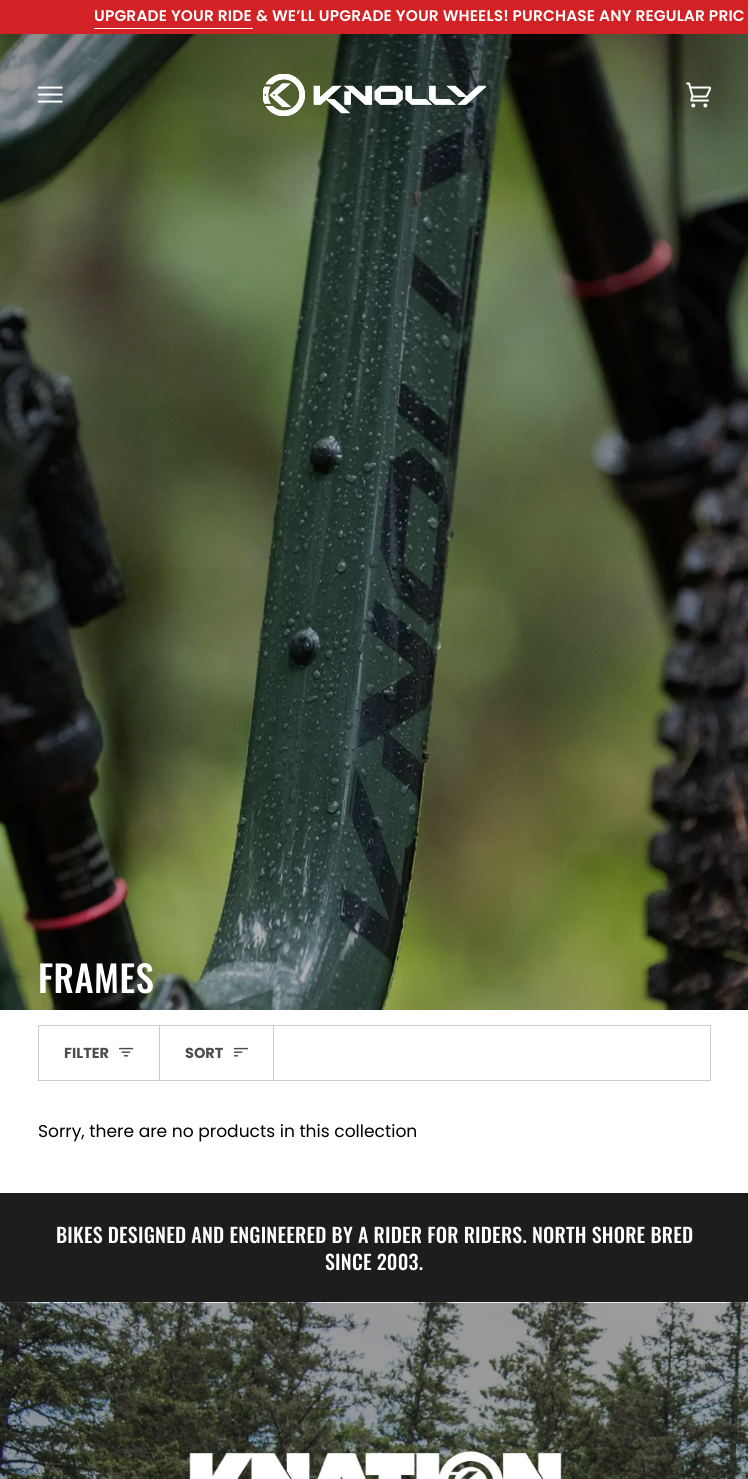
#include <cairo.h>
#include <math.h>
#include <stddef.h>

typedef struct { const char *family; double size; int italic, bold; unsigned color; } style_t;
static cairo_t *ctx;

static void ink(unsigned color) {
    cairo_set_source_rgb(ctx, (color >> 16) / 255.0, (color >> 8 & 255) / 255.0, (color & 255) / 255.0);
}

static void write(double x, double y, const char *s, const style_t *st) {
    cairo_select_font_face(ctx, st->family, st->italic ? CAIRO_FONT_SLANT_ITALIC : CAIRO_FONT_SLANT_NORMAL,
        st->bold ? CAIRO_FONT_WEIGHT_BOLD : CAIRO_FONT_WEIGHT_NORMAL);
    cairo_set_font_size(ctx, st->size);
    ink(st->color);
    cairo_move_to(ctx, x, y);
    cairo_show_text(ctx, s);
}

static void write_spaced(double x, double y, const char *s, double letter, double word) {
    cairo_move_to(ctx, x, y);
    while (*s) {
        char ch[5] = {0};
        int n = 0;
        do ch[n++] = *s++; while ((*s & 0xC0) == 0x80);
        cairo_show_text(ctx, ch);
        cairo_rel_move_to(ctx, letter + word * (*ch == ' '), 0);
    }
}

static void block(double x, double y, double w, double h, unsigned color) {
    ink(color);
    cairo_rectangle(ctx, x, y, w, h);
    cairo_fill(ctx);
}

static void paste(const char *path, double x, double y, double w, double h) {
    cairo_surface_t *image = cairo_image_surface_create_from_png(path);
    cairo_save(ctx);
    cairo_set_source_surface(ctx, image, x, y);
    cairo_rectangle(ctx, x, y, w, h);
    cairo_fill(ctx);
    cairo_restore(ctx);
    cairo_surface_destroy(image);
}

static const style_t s1 = {"Poppins", 14.5, 0, 1, 0x4d4d4d};
static const style_t s2 = {"Poppins", 17.1, 0, 0, 0x000000};

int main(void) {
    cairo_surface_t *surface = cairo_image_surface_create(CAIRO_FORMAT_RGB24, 748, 1479);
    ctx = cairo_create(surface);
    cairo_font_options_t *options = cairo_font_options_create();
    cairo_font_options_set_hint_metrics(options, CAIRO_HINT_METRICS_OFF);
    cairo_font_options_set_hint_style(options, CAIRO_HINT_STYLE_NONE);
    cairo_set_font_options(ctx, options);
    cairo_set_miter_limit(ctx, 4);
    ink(0xffffff);
    cairo_paint(ctx);
    block(0, 0, 748, 34, 0xd22225);
    cairo_select_font_face(ctx, "Poppins SemiBold", CAIRO_FONT_SLANT_NORMAL, CAIRO_FONT_WEIGHT_NORMAL);
    cairo_set_font_size(ctx, 15.4);
    ink(0xffffff);
    write_spaced(94, 21, "UPGRADE YOUR RIDE", 0.15, 0);
    cairo_new_path(ctx);
    cairo_move_to(ctx, 94, 28);
    cairo_line_to(ctx, 94, 29);
    cairo_line_to(ctx, 252, 29);
    cairo_line_to(ctx, 253, 29);
    cairo_line_to(ctx, 253, 28);
    cairo_close_path(ctx);
    cairo_fill(ctx);
    write_spaced(256, 21, "& WE’LL UPGRADE YOUR WHEELS! PURCHASE ANY REGULAR PRIC", 0.15, 0);
    paste("pic4.png", 0, 34, 748, 976);
    paste("pic1.png", 38, 86, 25, 17);
    paste("pic2.png", 263, 74, 223, 42);
    paste("pic3.png", 686, 82, 25, 26);
    cairo_select_font_face(ctx, "Oswald Medium", CAIRO_FONT_SLANT_NORMAL, CAIRO_FONT_WEIGHT_NORMAL);
    cairo_set_font_size(ctx, 36.5);
    write_spaced(38, 993, "FRAMES", 0.5, 0);
    cairo_rectangle(ctx, 38.5, 1025.5, 672, 55);
    ink(0xcccccc);
    cairo_set_line_width(ctx, 1);
    cairo_stroke(ctx);
    block(159, 1026, 1, 54, 0xcccccc);
    write(64, 1058, "FILTER", &s1);
    paste("pic5.png", 119, 1047, 15, 10);
    block(273, 1026, 1, 54, 0xcccccc);
    write(185, 1058, "SORT", &s1);
    paste("pic6.png", 234, 1047, 14, 10);
    write(38, 1137, "Sorry, there are no products in this collection", &s2);
    block(0, 1193, 748, 109, 0x1d1d1d);
    cairo_select_font_face(ctx, "Oswald Medium", CAIRO_FONT_SLANT_NORMAL, CAIRO_FONT_WEIGHT_NORMAL);
    cairo_set_font_size(ctx, 20);
    ink(0xffffff);
    write_spaced(56, 1243, "BIKES DESIGNED AND ENGINEERED BY A RIDER FOR RIDERS. NORTH SHORE BRED", 0.2, 0);
    write_spaced(325, 1270, "SINCE 2003.", 0.2, 0);
    paste("pic7.png", 0, 1302, 748, 177);
    paste("pic8.png", 189, 1451, 373, 28);
    cairo_surface_write_to_png(surface, "screenshot.png");
    cairo_font_options_destroy(options);
    cairo_destroy(ctx);
    cairo_surface_destroy(surface);
    return 0;
}
